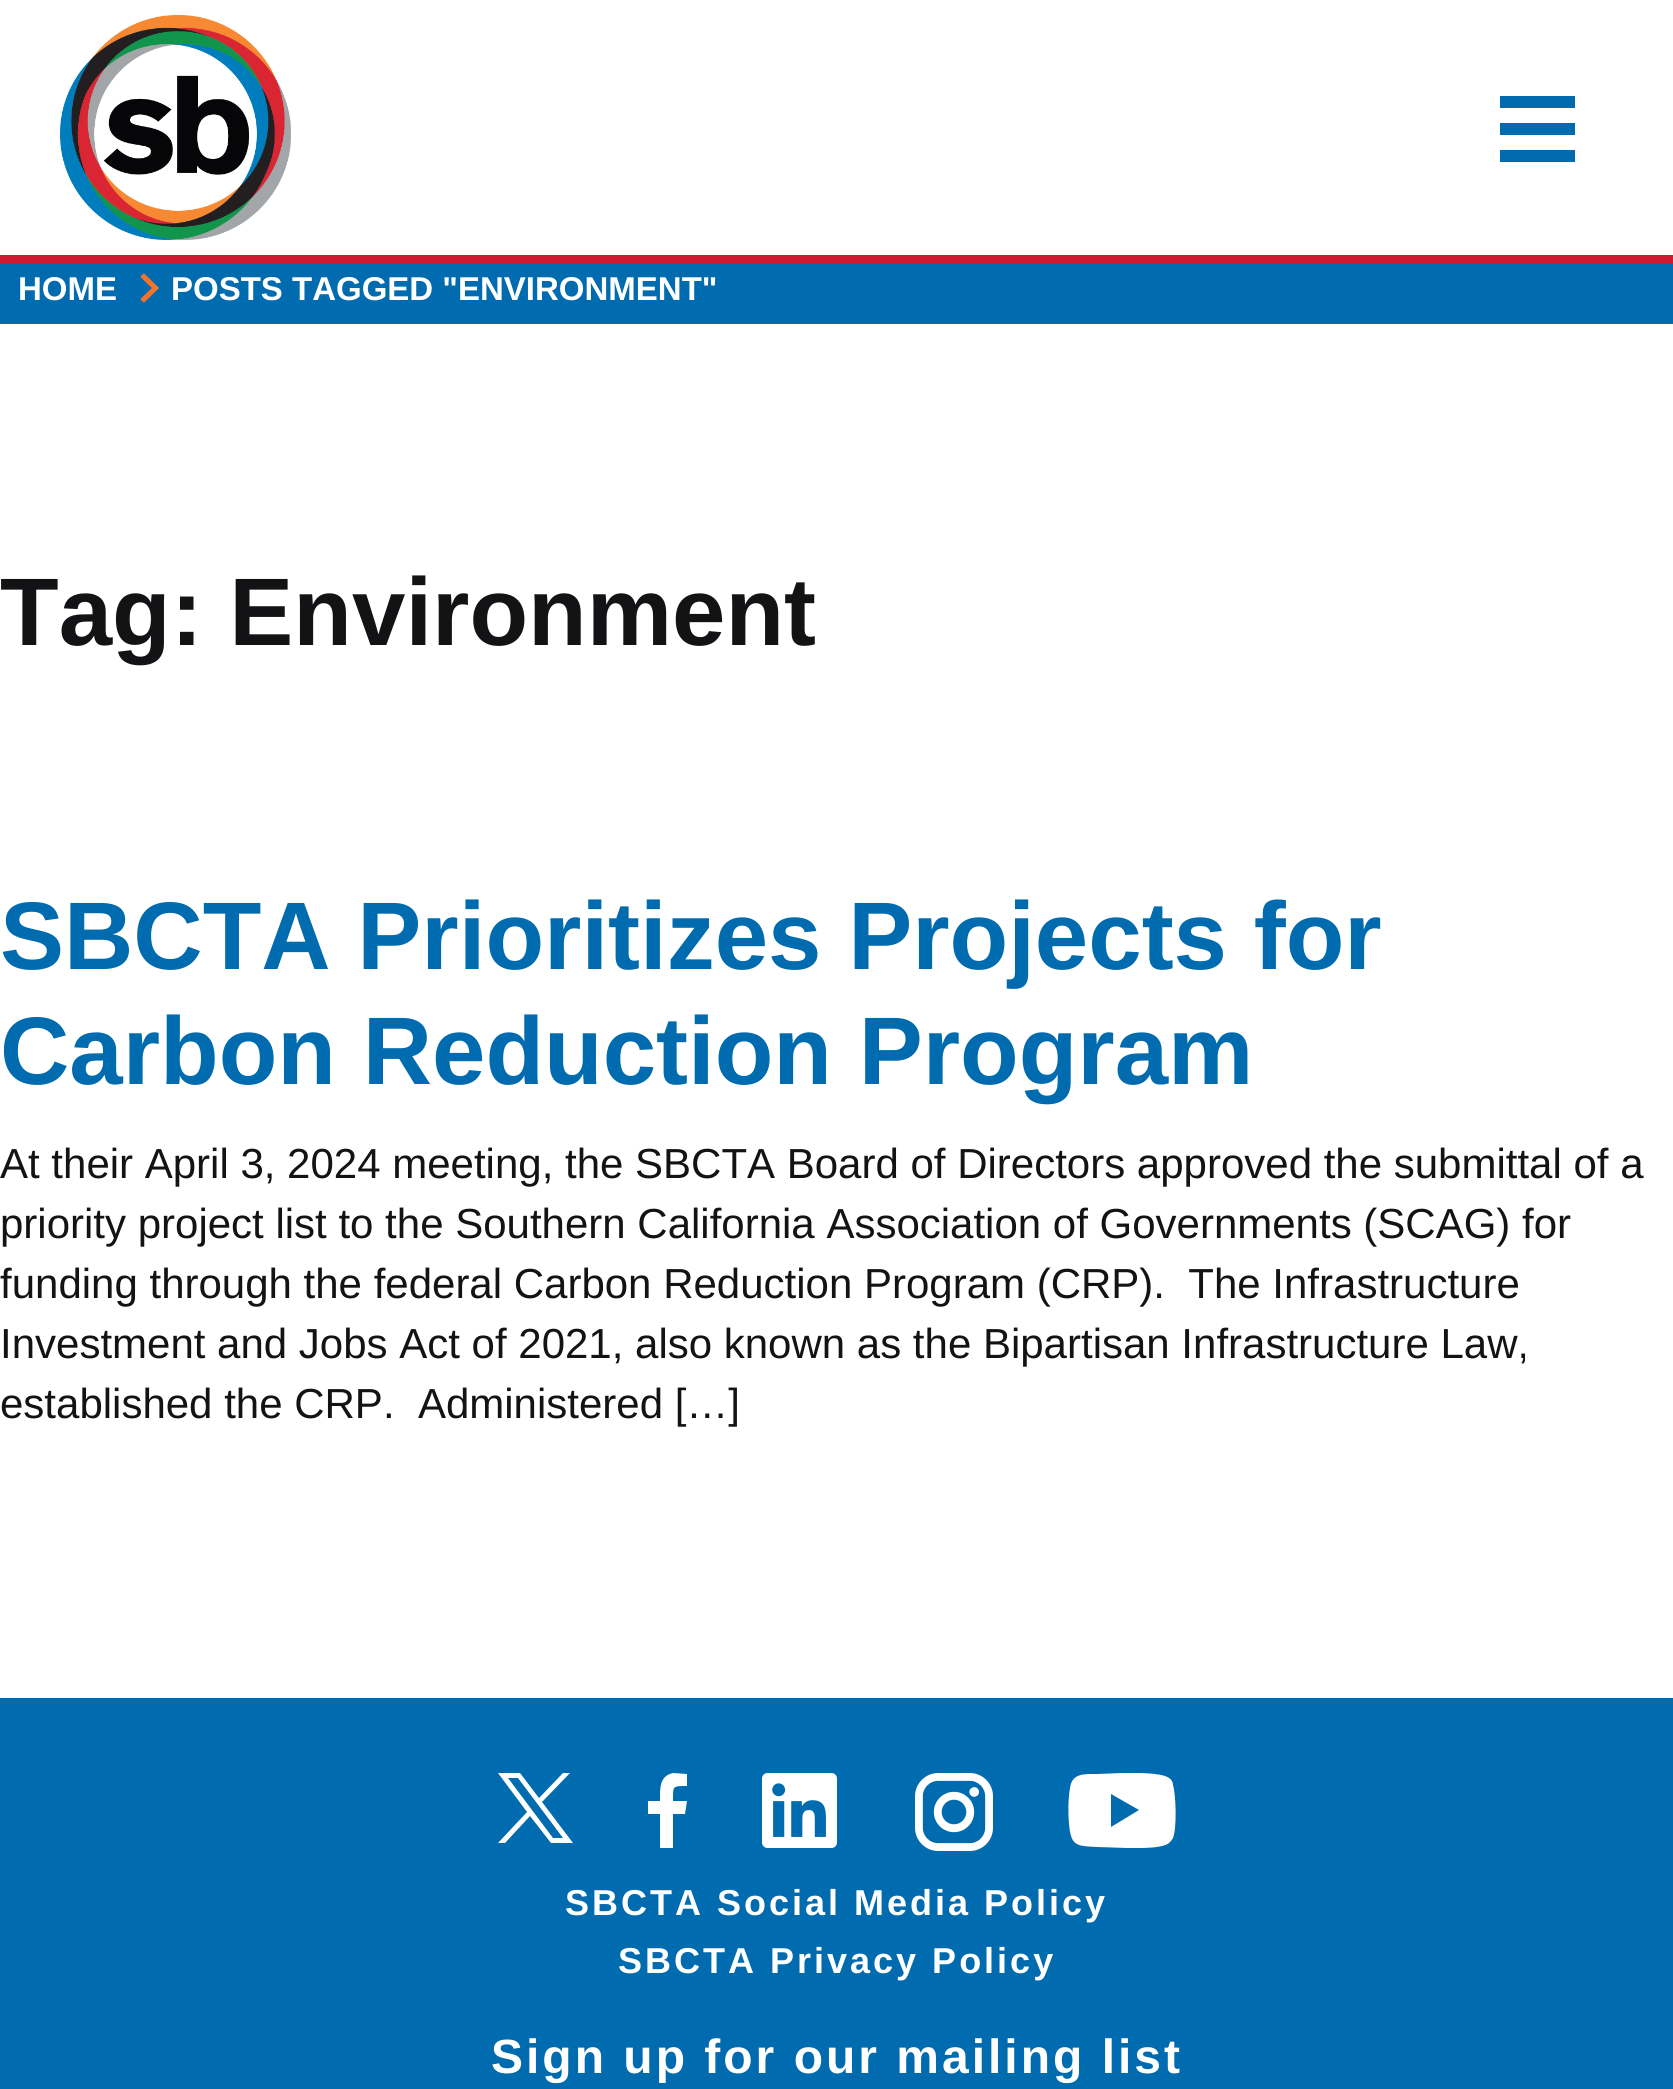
#include <cairo.h>
#include <math.h>
#include <stddef.h>

typedef struct { const char *family; double size; int italic, bold; unsigned color; } style_t;
static cairo_t *ctx;

static void ink(unsigned color) {
    cairo_set_source_rgb(ctx, (color >> 16) / 255.0, (color >> 8 & 255) / 255.0, (color & 255) / 255.0);
}

static void write(double x, double y, const char *s, const style_t *st) {
    cairo_select_font_face(ctx, st->family, st->italic ? CAIRO_FONT_SLANT_ITALIC : CAIRO_FONT_SLANT_NORMAL,
        st->bold ? CAIRO_FONT_WEIGHT_BOLD : CAIRO_FONT_WEIGHT_NORMAL);
    cairo_set_font_size(ctx, st->size);
    ink(st->color);
    cairo_move_to(ctx, x, y);
    cairo_show_text(ctx, s);
}

static void write_spaced(double x, double y, const char *s, double letter, double word) {
    cairo_move_to(ctx, x, y);
    while (*s) {
        char ch[5] = {0};
        int n = 0;
        do ch[n++] = *s++; while ((*s & 0xC0) == 0x80);
        cairo_show_text(ctx, ch);
        cairo_rel_move_to(ctx, letter + word * (*ch == ' '), 0);
    }
}

static void block(double x, double y, double w, double h, unsigned color) {
    ink(color);
    cairo_rectangle(ctx, x, y, w, h);
    cairo_fill(ctx);
}

static void paste(const char *path, double x, double y, double w, double h) {
    cairo_surface_t *image = cairo_image_surface_create_from_png(path);
    cairo_save(ctx);
    cairo_set_source_surface(ctx, image, x, y);
    cairo_rectangle(ctx, x, y, w, h);
    cairo_fill(ctx);
    cairo_restore(ctx);
    cairo_surface_destroy(image);
}

static const style_t s1 = {"Liberation Sans", 33, 0, 1, 0xffffff};
static const style_t s2 = {"Liberation Sans", 96, 0, 1, 0x131215};
static const style_t s3 = {"Liberation Sans", 96, 0, 1, 0x006bae};
static const style_t s4 = {"Liberation Sans", 42, 0, 0, 0x131215};

int main(void) {
    cairo_surface_t *surface = cairo_image_surface_create(CAIRO_FORMAT_RGB24, 1673, 2089);
    ctx = cairo_create(surface);
    cairo_font_options_t *options = cairo_font_options_create();
    cairo_font_options_set_hint_metrics(options, CAIRO_HINT_METRICS_OFF);
    cairo_font_options_set_hint_style(options, CAIRO_HINT_STYLE_NONE);
    cairo_set_font_options(ctx, options);
    cairo_set_miter_limit(ctx, 4);
    ink(0xffffff);
    cairo_paint(ctx);
    block(0, 255, 1673, 9, 0xd0192e);
    paste("pic1.png", 60, 15, 231, 225);
    block(1500, 96, 75, 12, 0x006bae);
    block(1500, 123, 75, 12, 0x006bae);
    block(1500, 150, 75, 12, 0x006bae);
    block(0, 264, 1673, 60, 0x006bae);
    write(18, 300, "HOME", &s1);
    cairo_new_path(ctx);
    cairo_move_to(ctx, 142, 301);
    cairo_line_to(ctx, 155.5, 288);
    cairo_line_to(ctx, 142, 275);
    ink(0xf4732b);
    cairo_set_line_width(ctx, 5.1);
    cairo_stroke(ctx);
    write(171, 300, "POSTS TAGGED \"ENVIRONMENT\"", &s1);
    write(0, 645, "Tag: Environment", &s2);
    write(0, 969, "SBCTA Prioritizes Projects for", &s3);
    write(0, 1084, "Carbon Reduction Program", &s3);
    write(0, 1178, "At their April 3, 2024 meeting, the SBCTA Board of Directors approved the submittal of a", &s4);
    write(0, 1238, "priority project list to the Southern California Association of Governments (SCAG) for", &s4);
    write(0, 1298, "funding through the federal Carbon Reduction Program (CRP).  The Infrastructure", &s4);
    write(0, 1358, "Investment and Jobs Act of 2021, also known as the Bipartisan Infrastructure Law,", &s4);
    write(0, 1418, "established the CRP.  Administered […]", &s4);
    block(0, 1698, 1673, 391, 0x006bae);
    ink(0xffffff);
    cairo_new_path(ctx);
    cairo_move_to(ctx, 498, 1773);
    cairo_line_to(ctx, 527, 1812);
    cairo_line_to(ctx, 498, 1843);
    cairo_line_to(ctx, 505, 1843);
    cairo_line_to(ctx, 530, 1816);
    cairo_line_to(ctx, 551, 1843);
    cairo_line_to(ctx, 573, 1843);
    cairo_line_to(ctx, 542, 1802);
    cairo_line_to(ctx, 570, 1773);
    cairo_line_to(ctx, 563, 1773);
    cairo_line_to(ctx, 539, 1798);
    cairo_line_to(ctx, 520, 1773);
    cairo_close_path(ctx);
    cairo_move_to(ctx, 508, 1778);
    cairo_line_to(ctx, 518, 1778);
    cairo_line_to(ctx, 563, 1838);
    cairo_line_to(ctx, 553, 1838);
    cairo_close_path(ctx);
    cairo_fill(ctx);
    cairo_set_fill_rule(ctx, CAIRO_FILL_RULE_EVEN_ODD);
    cairo_new_path(ctx);
    cairo_move_to(ctx, 673, 1848);
    cairo_line_to(ctx, 673, 1814);
    cairo_line_to(ctx, 685, 1814);
    cairo_line_to(ctx, 687, 1801);
    cairo_line_to(ctx, 673, 1801);
    cairo_curve_to(ctx, 673, 1786, 672, 1786, 687, 1786);
    cairo_line_to(ctx, 687, 1774);
    cairo_line_to(ctx, 673, 1773);
    cairo_curve_to(ctx, 659, 1776, 660, 1789, 660, 1801);
    cairo_line_to(ctx, 648, 1801);
    cairo_line_to(ctx, 648, 1814);
    cairo_line_to(ctx, 660, 1814);
    cairo_line_to(ctx, 660, 1848);
    cairo_close_path(ctx);
    cairo_fill(ctx);
    paste("pic2.png", 762, 1773, 75, 75);
    paste("pic3.png", 915, 1773, 78, 78);
    cairo_save(ctx);
    cairo_set_fill_rule(ctx, CAIRO_FILL_RULE_WINDING);
    cairo_rectangle(ctx, 1068, 1773, 108, 75);
    cairo_clip(ctx);
    cairo_new_path(ctx);
    cairo_move_to(ctx, 1122, 1773);
    cairo_line_to(ctx, 1097, 1774);
    cairo_curve_to(ctx, 1084, 1774, 1072, 1773, 1070, 1788);
    cairo_curve_to(ctx, 1068, 1800, 1068, 1813, 1069, 1824);
    cairo_curve_to(ctx, 1071, 1846, 1076, 1846, 1097, 1847);
    cairo_line_to(ctx, 1127, 1848);
    cairo_curve_to(ctx, 1136, 1848, 1162, 1849, 1169, 1843);
    cairo_curve_to(ctx, 1170, 1842, 1172, 1840, 1173, 1838);
    cairo_curve_to(ctx, 1177, 1828, 1176, 1795, 1173, 1785);
    cairo_curve_to(ctx, 1173, 1782, 1171, 1779, 1169, 1778);
    cairo_curve_to(ctx, 1161, 1772, 1132, 1773, 1122, 1773);
    cairo_close_path(ctx);
    cairo_move_to(ctx, 1111, 1794);
    cairo_line_to(ctx, 1139, 1810);
    cairo_line_to(ctx, 1111, 1827);
    cairo_close_path(ctx);
    cairo_fill(ctx);
    cairo_restore(ctx);
    cairo_select_font_face(ctx, "Liberation Sans", CAIRO_FONT_SLANT_NORMAL, CAIRO_FONT_WEIGHT_BOLD);
    cairo_set_font_size(ctx, 36);
    write_spaced(565, 1915, "SBCTA Social Media Policy", 3, 0);
    write_spaced(618, 1973, "SBCTA Privacy Policy", 3, 0);
    cairo_set_font_size(ctx, 48);
    write_spaced(491, 2073, "Sign up for our mailing list", 3, 0);
    cairo_surface_write_to_png(surface, "screenshot.png");
    cairo_font_options_destroy(options);
    cairo_destroy(ctx);
    cairo_surface_destroy(surface);
    return 0;
}
